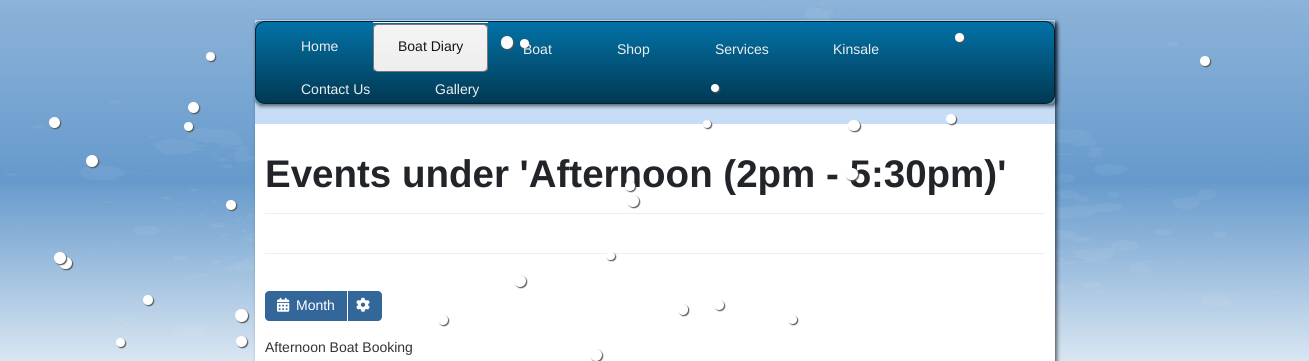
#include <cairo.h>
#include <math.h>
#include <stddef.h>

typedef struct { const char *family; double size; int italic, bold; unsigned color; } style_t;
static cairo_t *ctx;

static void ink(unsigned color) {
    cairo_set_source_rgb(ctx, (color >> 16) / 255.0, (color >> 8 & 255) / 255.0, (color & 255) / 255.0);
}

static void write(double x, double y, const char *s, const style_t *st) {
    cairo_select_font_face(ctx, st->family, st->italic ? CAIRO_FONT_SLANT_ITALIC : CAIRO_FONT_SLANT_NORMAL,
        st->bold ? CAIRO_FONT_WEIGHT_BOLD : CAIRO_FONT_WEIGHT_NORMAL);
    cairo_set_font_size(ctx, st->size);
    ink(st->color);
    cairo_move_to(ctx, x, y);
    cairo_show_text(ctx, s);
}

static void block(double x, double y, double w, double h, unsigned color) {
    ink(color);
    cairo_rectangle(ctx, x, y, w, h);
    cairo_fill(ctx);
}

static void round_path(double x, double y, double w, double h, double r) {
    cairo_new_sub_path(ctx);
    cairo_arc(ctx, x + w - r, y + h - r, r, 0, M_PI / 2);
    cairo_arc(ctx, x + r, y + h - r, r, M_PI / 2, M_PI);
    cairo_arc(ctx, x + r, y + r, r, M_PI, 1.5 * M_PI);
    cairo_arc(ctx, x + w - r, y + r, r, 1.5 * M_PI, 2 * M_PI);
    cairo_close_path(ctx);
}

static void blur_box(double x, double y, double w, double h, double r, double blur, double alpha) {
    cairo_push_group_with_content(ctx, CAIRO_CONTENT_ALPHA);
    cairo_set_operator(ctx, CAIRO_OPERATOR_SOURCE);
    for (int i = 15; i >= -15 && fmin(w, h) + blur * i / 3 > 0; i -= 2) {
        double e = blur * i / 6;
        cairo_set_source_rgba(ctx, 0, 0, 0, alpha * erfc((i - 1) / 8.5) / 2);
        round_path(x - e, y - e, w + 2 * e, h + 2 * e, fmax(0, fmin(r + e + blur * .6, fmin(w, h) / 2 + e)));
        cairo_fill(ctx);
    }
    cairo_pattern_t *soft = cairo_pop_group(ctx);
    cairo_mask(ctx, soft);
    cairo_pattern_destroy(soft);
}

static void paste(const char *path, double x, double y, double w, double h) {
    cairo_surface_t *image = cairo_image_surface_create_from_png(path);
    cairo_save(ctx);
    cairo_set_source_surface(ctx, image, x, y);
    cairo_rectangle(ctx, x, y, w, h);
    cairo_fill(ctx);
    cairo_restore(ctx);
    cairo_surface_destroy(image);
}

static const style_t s1 = {"Liberation Sans", 14, 0, 0, 0xeeeeee};
static const style_t s2 = {"Liberation Sans", 14, 0, 0, 0x161616};
static const style_t s3 = {"Liberation Sans", 38.5, 0, 1, 0x212529};
static const style_t s4 = {"Liberation Sans", 14, 0, 0, 0xffffff};
static const style_t s5 = {"Liberation Sans", 14, 0, 0, 0x333333};

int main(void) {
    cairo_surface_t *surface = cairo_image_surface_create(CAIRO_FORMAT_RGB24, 1309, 361);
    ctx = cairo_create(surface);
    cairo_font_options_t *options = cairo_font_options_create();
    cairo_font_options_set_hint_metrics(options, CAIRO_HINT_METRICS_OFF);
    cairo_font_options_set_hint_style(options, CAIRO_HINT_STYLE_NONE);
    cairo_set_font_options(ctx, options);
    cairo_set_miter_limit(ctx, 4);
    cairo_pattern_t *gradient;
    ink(0xffffff);
    cairo_paint(ctx);
    paste("pic1.png", 0, 0, 1309, 361);
    ink(0x000000);
    blur_box(257, 22, 800, 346, 1, 2, 0.59);
    ink(0xc7ddf5);
    round_path(255, 20, 800, 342, 1);
    cairo_fill(ctx);
    ink(0x000000);
    blur_box(257, 23, 800, 83, 4, 2, 0.59);
    ink(0x628fb2);
    round_path(255, 21, 800, 83, 4);
    cairo_fill(ctx);
    cairo_save(ctx);
    round_path(255, 21, 800, 83, 10);
    cairo_clip(ctx);
    gradient = cairo_pattern_create_linear(655, 22, 655, 103);
    cairo_pattern_add_color_stop_rgba(gradient, 0, 0.008, 0.447, 0.655, 1);
    cairo_pattern_add_color_stop_rgba(gradient, 1, 0.004, 0.224, 0.325, 1);
    cairo_set_source(ctx, gradient);
    cairo_pattern_destroy(gradient);
    cairo_rectangle(ctx, 255, 22, 800, 81);
    cairo_fill(ctx);
    cairo_restore(ctx);
    round_path(255.5, 21.5, 799, 82, 9.5);
    ink(0x002232);
    cairo_set_line_width(ctx, 1);
    cairo_stroke(ctx);
    ink(0x555555);
    blur_box(502, 37, 12, 13, 6, 0.5, 1);
    ink(0xffffff);
    round_path(501, 36, 12, 13, 6);
    cairo_fill(ctx);
    ink(0x555555);
    blur_box(521, 40, 9, 9, 4.5, 0.5, 1);
    write(523, 54, "Boat", &s1);
    ink(0xffffff);
    cairo_new_path(ctx);
    cairo_arc(ctx, 524.5, 43.5, 4.5, 0, 2 * M_PI);
    cairo_fill(ctx);
    ink(0x555555);
    blur_box(956, 34, 9, 9, 4.5, 0.5, 1);
    ink(0xffffff);
    cairo_arc(ctx, 959.5, 37.5, 4.5, 0, 2 * M_PI);
    cairo_fill(ctx);
    ink(0x555555);
    blur_box(207, 53, 9, 9, 4.5, 0.5, 1);
    ink(0xffffff);
    cairo_arc(ctx, 210.5, 56.5, 4.5, 0, 2 * M_PI);
    cairo_fill(ctx);
    block(373, 22, 115, 1, 0xffffff);
    write(301, 51, "Home", &s1);
    cairo_save(ctx);
    round_path(373, 24, 115, 48, 5);
    cairo_clip(ctx);
    gradient = cairo_pattern_create_linear(431, 25, 431, 71);
    cairo_pattern_add_color_stop_rgba(gradient, 0, 0.957, 0.957, 0.957, 1);
    cairo_pattern_add_color_stop_rgba(gradient, 1, 0.933, 0.933, 0.933, 1);
    cairo_set_source(ctx, gradient);
    cairo_pattern_destroy(gradient);
    cairo_rectangle(ctx, 373, 25, 115, 46);
    cairo_fill(ctx);
    cairo_restore(ctx);
    round_path(373.5, 24.5, 114, 47, 4.5);
    ink(0x777777);
    cairo_stroke(ctx);
    write(398, 51, "Boat Diary", &s2);
    write(617, 54, "Shop", &s1);
    write(715, 54, "Services", &s1);
    write(833, 54, "Kinsale", &s1);
    write(301, 94, "Contact Us", &s1);
    write(435, 94, "Gallery", &s1);
    block(255, 124, 800, 237, 0xffffff);
    block(265, 213, 780, 1, 0xeeeeee);
    write(265, 187, "Events under 'Afternoon (2pm - 5:30pm)'", &s3);
    block(265, 253, 780, 1, 0xeeeeee);
    ink(0x336699);
    cairo_new_path(ctx);
    cairo_move_to(ctx, 269, 291);
    cairo_line_to(ctx, 347, 291);
    cairo_line_to(ctx, 347, 321);
    cairo_line_to(ctx, 269, 321);
    cairo_curve_to(ctx, 267, 321, 265, 319, 265, 317);
    cairo_line_to(ctx, 265, 295);
    cairo_curve_to(ctx, 265, 293, 267, 291, 269, 291);
    cairo_close_path(ctx);
    cairo_fill(ctx);
    paste("pic2.png", 277, 297, 13, 15);
    write(296, 310, "Month", &s4);
    ink(0x336699);
    cairo_new_path(ctx);
    cairo_move_to(ctx, 348, 291);
    cairo_line_to(ctx, 378, 291);
    cairo_curve_to(ctx, 380, 291, 382, 293, 382, 295);
    cairo_line_to(ctx, 382, 317);
    cairo_curve_to(ctx, 382, 319, 380, 321, 378, 321);
    cairo_line_to(ctx, 348, 321);
    cairo_close_path(ctx);
    cairo_fill(ctx);
    paste("pic3.png", 356, 297, 14, 15);
    write(265, 352, "Afternoon Boat Booking", &s5);
    ink(0x555555);
    blur_box(1201, 57, 10, 10, 5, 0.5, 1);
    ink(0xffffff);
    cairo_arc(ctx, 1205, 61, 5, 0, 2 * M_PI);
    cairo_fill(ctx);
    ink(0x555555);
    blur_box(712, 85, 8, 8, 4, 0.5, 1);
    ink(0xffffff);
    cairo_arc(ctx, 715, 88, 4, 0, 2 * M_PI);
    cairo_fill(ctx);
    ink(0x555555);
    blur_box(189, 103, 11, 11, 5.5, 0.5, 1);
    ink(0xffffff);
    cairo_arc(ctx, 193.5, 107.5, 5.5, 0, 2 * M_PI);
    cairo_fill(ctx);
    ink(0x555555);
    blur_box(50, 118, 11, 11, 5.5, 0.5, 1);
    ink(0xffffff);
    cairo_arc(ctx, 54.5, 122.5, 5.5, 0, 2 * M_PI);
    cairo_fill(ctx);
    ink(0x555555);
    blur_box(185, 123, 9, 9, 4.5, 0.5, 1);
    ink(0xffffff);
    cairo_arc(ctx, 188.5, 126.5, 4.5, 0, 2 * M_PI);
    cairo_fill(ctx);
    ink(0x555555);
    blur_box(704, 121, 8, 8, 4, 0.5, 1);
    ink(0xffffff);
    cairo_arc(ctx, 707, 124, 4, 0, 2 * M_PI);
    cairo_fill(ctx);
    ink(0x555555);
    blur_box(849, 121, 12, 11, 5.5, 0.5, 1);
    ink(0xffffff);
    round_path(848, 120, 12, 11, 5.5);
    cairo_fill(ctx);
    ink(0x555555);
    blur_box(947, 115, 10, 10, 5, 0.5, 1);
    ink(0xffffff);
    cairo_arc(ctx, 951, 119, 5, 0, 2 * M_PI);
    cairo_fill(ctx);
    ink(0x555555);
    blur_box(87, 156, 12, 12, 6, 0.5, 1);
    ink(0xffffff);
    cairo_arc(ctx, 92, 161, 6, 0, 2 * M_PI);
    cairo_fill(ctx);
    ink(0x555555);
    blur_box(846, 169, 13, 12, 6, 0.5, 1);
    ink(0xffffff);
    round_path(845, 168, 13, 12, 6);
    cairo_fill(ctx);
    ink(0x555555);
    blur_box(626, 182, 10, 10, 5, 0.5, 1);
    ink(0xffffff);
    cairo_arc(ctx, 630, 186, 5, 0, 2 * M_PI);
    cairo_fill(ctx);
    ink(0x555555);
    blur_box(227, 201, 10, 10, 5, 0.5, 1);
    ink(0xffffff);
    cairo_arc(ctx, 231, 205, 5, 0, 2 * M_PI);
    cairo_fill(ctx);
    ink(0x555555);
    blur_box(628, 196, 12, 12, 6, 0.5, 1);
    ink(0xffffff);
    cairo_arc(ctx, 633, 201, 6, 0, 2 * M_PI);
    cairo_fill(ctx);
    ink(0x555555);
    blur_box(60, 258, 13, 12, 6, 0.5, 1);
    ink(0xffffff);
    round_path(59, 257, 13, 12, 6);
    cairo_fill(ctx);
    ink(0x555555);
    blur_box(55, 253, 12, 12, 6, 0.5, 1);
    ink(0xffffff);
    cairo_arc(ctx, 60, 258, 6, 0, 2 * M_PI);
    cairo_fill(ctx);
    ink(0x555555);
    blur_box(607, 253, 9, 8, 4, 0.5, 1);
    ink(0xffffff);
    round_path(606, 252, 9, 8, 4);
    cairo_fill(ctx);
    ink(0x555555);
    blur_box(515, 276, 12, 12, 6, 0.5, 1);
    ink(0xffffff);
    cairo_arc(ctx, 520, 281, 6, 0, 2 * M_PI);
    cairo_fill(ctx);
    ink(0x555555);
    blur_box(144, 296, 10, 10, 5, 0.5, 1);
    ink(0xffffff);
    cairo_arc(ctx, 148, 300, 5, 0, 2 * M_PI);
    cairo_fill(ctx);
    ink(0x555555);
    blur_box(236, 310, 13, 13, 6.5, 0.5, 1);
    ink(0xffffff);
    cairo_arc(ctx, 241.5, 315.5, 6.5, 0, 2 * M_PI);
    cairo_fill(ctx);
    ink(0x555555);
    blur_box(439, 316, 10, 10, 5, 0.5, 1);
    ink(0xffffff);
    cairo_arc(ctx, 443, 320, 5, 0, 2 * M_PI);
    cairo_fill(ctx);
    ink(0x555555);
    blur_box(679, 305, 10, 11, 5, 0.5, 1);
    ink(0xffffff);
    round_path(678, 304, 10, 11, 5);
    cairo_fill(ctx);
    ink(0x555555);
    blur_box(715, 301, 10, 10, 5, 0.5, 1);
    ink(0xffffff);
    cairo_arc(ctx, 719, 305, 5, 0, 2 * M_PI);
    cairo_fill(ctx);
    ink(0x555555);
    blur_box(789, 316, 9, 9, 4.5, 0.5, 1);
    ink(0xffffff);
    cairo_arc(ctx, 792.5, 319.5, 4.5, 0, 2 * M_PI);
    cairo_fill(ctx);
    ink(0x555555);
    blur_box(117, 339, 9, 9, 4.5, 0.5, 1);
    ink(0xffffff);
    cairo_arc(ctx, 120.5, 342.5, 4.5, 0, 2 * M_PI);
    cairo_fill(ctx);
    ink(0x555555);
    blur_box(237, 337, 11, 11, 5.5, 0.5, 1);
    ink(0xffffff);
    cairo_arc(ctx, 241.5, 341.5, 5.5, 0, 2 * M_PI);
    cairo_fill(ctx);
    ink(0x555555);
    blur_box(591, 350, 12, 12, 6, 0.5, 1);
    ink(0xffffff);
    cairo_arc(ctx, 596, 355, 6, 0, 2 * M_PI);
    cairo_fill(ctx);
    cairo_surface_write_to_png(surface, "screenshot.png");
    cairo_font_options_destroy(options);
    cairo_destroy(ctx);
    cairo_surface_destroy(surface);
    return 0;
}
